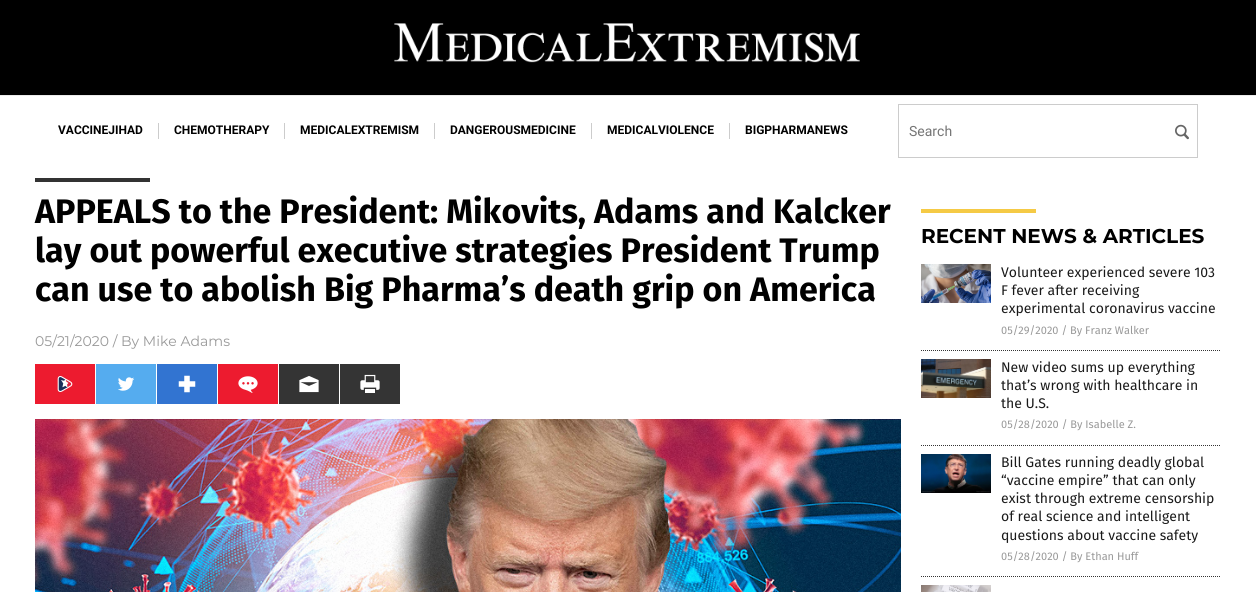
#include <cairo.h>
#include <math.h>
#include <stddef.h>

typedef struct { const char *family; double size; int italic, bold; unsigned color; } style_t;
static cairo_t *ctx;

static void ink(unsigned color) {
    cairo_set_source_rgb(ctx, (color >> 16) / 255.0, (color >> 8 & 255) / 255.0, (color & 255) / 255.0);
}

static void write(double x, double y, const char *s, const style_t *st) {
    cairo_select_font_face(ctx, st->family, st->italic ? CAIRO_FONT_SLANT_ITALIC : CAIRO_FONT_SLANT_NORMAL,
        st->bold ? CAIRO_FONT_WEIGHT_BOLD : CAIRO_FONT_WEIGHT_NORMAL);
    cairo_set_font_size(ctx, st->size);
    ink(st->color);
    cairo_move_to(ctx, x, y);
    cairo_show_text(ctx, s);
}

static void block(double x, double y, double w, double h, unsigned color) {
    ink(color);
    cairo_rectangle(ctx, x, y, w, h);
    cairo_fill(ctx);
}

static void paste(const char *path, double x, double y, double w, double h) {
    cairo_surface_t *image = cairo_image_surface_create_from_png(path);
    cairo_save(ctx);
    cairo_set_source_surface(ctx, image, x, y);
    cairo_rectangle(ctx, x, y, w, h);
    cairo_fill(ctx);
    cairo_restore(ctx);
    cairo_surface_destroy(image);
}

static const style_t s1 = {"Roboto", 12, 0, 1, 0x000000};
static const style_t s2 = {"Roboto", 14, 0, 0, 0x757575};
static const style_t s3 = {"Fira Sans", 34, 0, 1, 0x000000};
static const style_t s4 = {"Montserrat", 14, 0, 0, 0x999999};
static const style_t s5 = {"Montserrat", 20, 0, 1, 0x000000};
static const style_t s6 = {"Fira Sans", 14, 0, 0, 0x1a1a1a};
static const style_t s7 = {"Fira Sans", 11, 0, 0, 0x999999};

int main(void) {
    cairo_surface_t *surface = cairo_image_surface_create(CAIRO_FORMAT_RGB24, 1256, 592);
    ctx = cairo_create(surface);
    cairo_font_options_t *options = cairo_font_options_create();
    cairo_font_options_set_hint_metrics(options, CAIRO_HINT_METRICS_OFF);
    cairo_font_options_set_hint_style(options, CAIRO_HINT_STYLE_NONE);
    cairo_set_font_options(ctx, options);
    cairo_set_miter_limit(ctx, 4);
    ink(0x000000);
    cairo_paint(ctx);
    paste("pic1.png", 394, 23, 466, 40);
    block(0, 96, 1256, 496, 0xffffff);
    block(0, 95, 1256, 1, 0xececec);
    block(158, 123, 1, 16, 0xcccccc);
    write(58, 134, "VACCINEJIHAD", &s1);
    block(284, 123, 1, 16, 0xcccccc);
    write(174, 134, "CHEMOTHERAPY", &s1);
    block(434, 123, 1, 16, 0xcccccc);
    write(300, 134, "MEDICALEXTREMISM", &s1);
    block(591, 123, 1, 16, 0xcccccc);
    write(450, 134, "DANGEROUSMEDICINE", &s1);
    block(729, 123, 1, 16, 0xcccccc);
    write(607, 134, "MEDICALVIOLENCE", &s1);
    write(745, 134, "BIGPHARMANEWS", &s1);
    cairo_rectangle(ctx, 898.5, 104.5, 299, 53);
    ink(0xcccccc);
    cairo_set_line_width(ctx, 1);
    cairo_stroke(ctx);
    write(909, 136, "Search", &s2);
    paste("pic2.png", 1175, 124, 14, 16);
    block(35, 178, 115, 4, 0x333333);
    write(35, 223, "APPEALS to the President: Mikovits, Adams and Kalcker", &s3);
    write(35, 262, "lay out powerful executive strategies President Trump", &s3);
    write(35, 301, "can use to abolish Big Pharma’s death grip on America", &s3);
    write(35, 346, "05/21/2020 / By Mike Adams", &s4);
    block(35, 364, 60, 40, 0xed1b2f);
    paste("pic3.png", 57, 376, 16, 16);
    block(96, 364, 60, 40, 0x55acef);
    paste("pic4.png", 118, 377, 16, 14);
    block(157, 364, 60, 40, 0x3274d1);
    paste("pic5.png", 178, 375, 18, 18);
    block(218, 364, 60, 40, 0xed1b2f);
    paste("pic6.png", 238, 376, 20, 17);
    block(279, 364, 60, 40, 0x343434);
    paste("pic7.png", 299, 376, 20, 17);
    block(340, 364, 60, 40, 0x343434);
    paste("pic8.png", 360, 374, 20, 19);
    paste("pic9.png", 35, 419, 866, 173);
    block(921, 209, 115, 4, 0xf5ca45);
    write(921, 243, "RECENT NEWS & ARTICLES", &s5);
    cairo_new_path(ctx);
    cairo_move_to(ctx, 921, 350.5);
    cairo_line_to(ctx, 1221, 350.5);
    ink(0x343434);
    cairo_set_dash(ctx, (double[]){1, 1}, 2, 0);
    cairo_stroke(ctx);
    paste("pic10.png", 921, 264, 70, 39);
    write(1001, 277, "Volunteer experienced severe 103", &s6);
    write(1001, 295, "F fever after receiving", &s6);
    write(1001, 313, "experimental coronavirus vaccine", &s6);
    write(1001, 334, "05/29/2020 / By Franz Walker", &s7);
    cairo_new_path(ctx);
    cairo_move_to(ctx, 921, 445.5);
    cairo_line_to(ctx, 1221, 445.5);
    ink(0x343434);
    cairo_stroke(ctx);
    paste("pic11.png", 921, 359, 70, 39);
    write(1001, 372, "New video sums up everything", &s6);
    write(1001, 390, "that’s wrong with healthcare in", &s6);
    write(1001, 408, "the U.S.", &s6);
    write(1001, 428, "05/28/2020 / By Isabelle Z.", &s7);
    cairo_new_path(ctx);
    cairo_move_to(ctx, 921, 576.5);
    cairo_line_to(ctx, 1221, 576.5);
    ink(0x343434);
    cairo_stroke(ctx);
    paste("pic12.png", 921, 454, 70, 39);
    write(1001, 467, "Bill Gates running deadly global", &s6);
    write(1001, 485, "“vaccine empire” that can only", &s6);
    write(1001, 503, "exist through extreme censorship", &s6);
    write(1001, 521, "of real science and intelligent", &s6);
    write(1001, 540, "questions about vaccine safety", &s6);
    write(1001, 560, "05/28/2020 / By Ethan Huff", &s7);
    paste("pic13.png", 921, 585, 70, 7);
    cairo_surface_write_to_png(surface, "screenshot.png");
    cairo_font_options_destroy(options);
    cairo_destroy(ctx);
    cairo_surface_destroy(surface);
    return 0;
}
